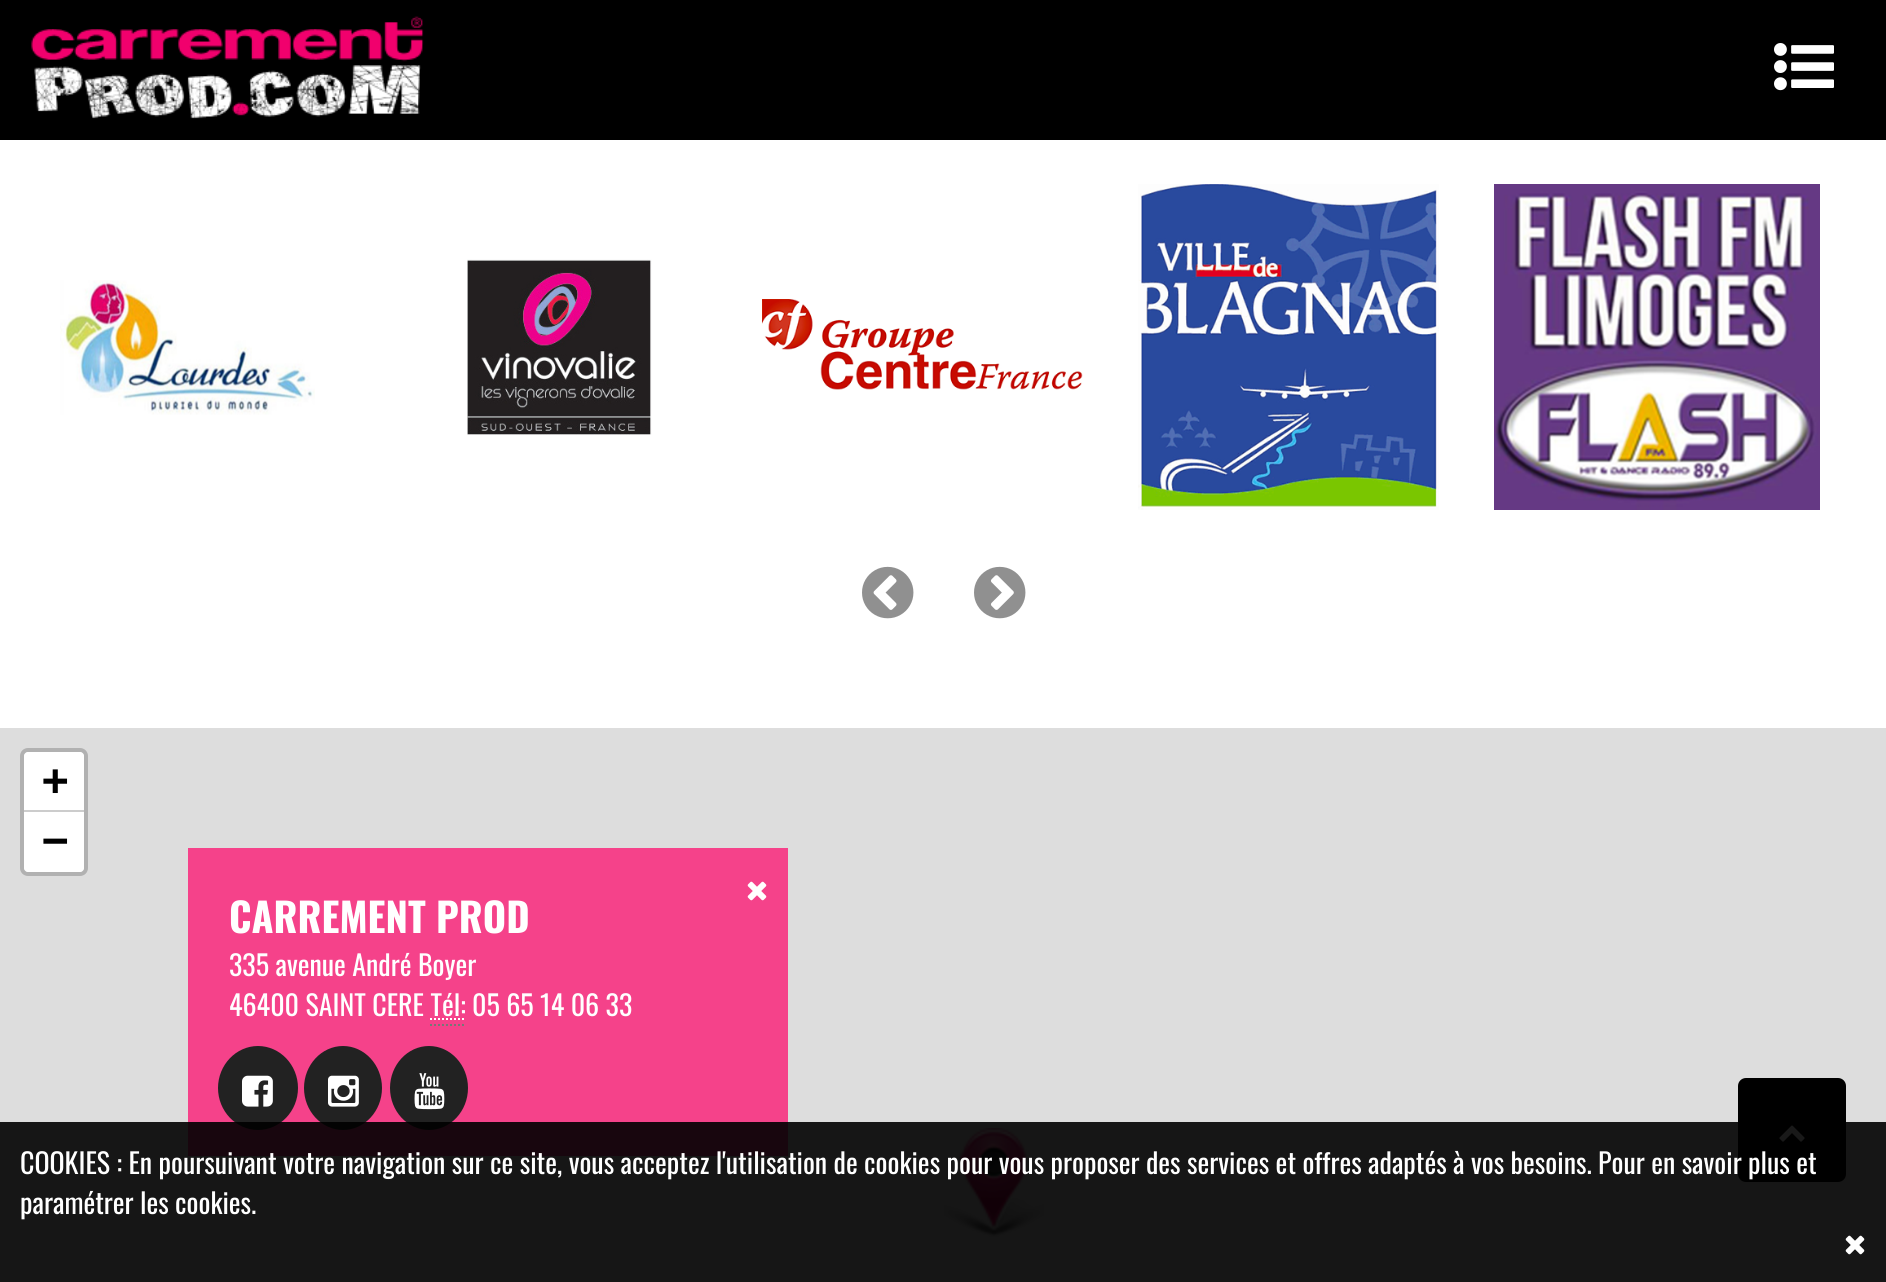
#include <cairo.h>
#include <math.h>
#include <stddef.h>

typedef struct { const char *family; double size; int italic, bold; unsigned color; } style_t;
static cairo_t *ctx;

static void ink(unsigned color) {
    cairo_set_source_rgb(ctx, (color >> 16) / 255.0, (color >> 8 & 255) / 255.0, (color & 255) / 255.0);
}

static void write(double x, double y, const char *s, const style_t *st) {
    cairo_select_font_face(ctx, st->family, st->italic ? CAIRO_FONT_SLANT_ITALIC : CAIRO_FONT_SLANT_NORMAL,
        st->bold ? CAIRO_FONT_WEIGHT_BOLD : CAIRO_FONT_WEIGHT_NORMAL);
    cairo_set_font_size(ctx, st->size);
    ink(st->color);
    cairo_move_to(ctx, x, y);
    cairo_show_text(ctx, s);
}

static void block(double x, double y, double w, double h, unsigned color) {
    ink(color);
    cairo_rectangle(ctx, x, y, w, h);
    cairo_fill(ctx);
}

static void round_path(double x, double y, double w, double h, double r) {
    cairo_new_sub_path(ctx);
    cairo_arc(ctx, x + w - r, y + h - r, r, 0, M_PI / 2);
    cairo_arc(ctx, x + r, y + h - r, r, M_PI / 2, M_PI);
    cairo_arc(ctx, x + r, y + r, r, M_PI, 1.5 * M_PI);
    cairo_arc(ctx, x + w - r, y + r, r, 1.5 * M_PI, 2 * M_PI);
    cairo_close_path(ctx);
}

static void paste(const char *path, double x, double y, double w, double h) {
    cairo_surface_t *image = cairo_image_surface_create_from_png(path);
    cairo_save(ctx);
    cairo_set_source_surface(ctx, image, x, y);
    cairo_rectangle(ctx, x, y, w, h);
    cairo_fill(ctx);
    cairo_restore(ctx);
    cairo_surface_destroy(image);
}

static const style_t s1 = {"DejaVu Sans Mono", 44, 0, 1, 0x000000};
static const style_t s2 = {"Oswald", 40, 0, 1, 0xffffff};
static const style_t s3 = {"Oswald", 28, 0, 0, 0xffffff};

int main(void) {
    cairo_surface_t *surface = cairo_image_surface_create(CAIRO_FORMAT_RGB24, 1886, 1282);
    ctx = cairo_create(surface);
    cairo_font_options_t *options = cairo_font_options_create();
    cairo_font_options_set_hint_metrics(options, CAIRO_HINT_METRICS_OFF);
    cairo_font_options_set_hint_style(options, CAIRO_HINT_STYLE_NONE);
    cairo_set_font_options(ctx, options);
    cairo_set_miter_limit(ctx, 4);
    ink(0xffffff);
    cairo_paint(ctx);
    block(0, 0, 1886, 140, 0x000000);
    paste("pic1.png", 31, 16, 393, 103);
    paste("pic2.png", 1774, 43, 60, 48);
    paste("pic3.png", 60, 280, 255, 135);
    paste("pic4.png", 467, 259, 185, 176);
    paste("pic5.png", 762, 299, 321, 91);
    paste("pic6.png", 1138, 184, 301, 326);
    paste("pic7.png", 1494, 184, 326, 326);
    paste("pic8.png", 862, 566, 52, 53);
    paste("pic9.png", 974, 566, 52, 53);
    block(0, 728, 1886, 554, 0xdddddd);
    round_path(22, 750, 64, 124, 6);
    ink(0xb1b1b1);
    cairo_set_line_width(ctx, 4);
    cairo_stroke(ctx);
    ink(0xffffff);
    cairo_new_path(ctx);
    cairo_move_to(ctx, 28, 752);
    cairo_line_to(ctx, 80, 752);
    cairo_curve_to(ctx, 82, 752, 84, 754, 84, 756);
    cairo_line_to(ctx, 84, 812);
    cairo_line_to(ctx, 24, 812);
    cairo_line_to(ctx, 24, 756);
    cairo_curve_to(ctx, 24, 754, 26, 752, 28, 752);
    cairo_close_path(ctx);
    cairo_fill(ctx);
    block(24, 810, 60, 2, 0xcccccc);
    write(42, 795, "+", &s1);
    ink(0xffffff);
    cairo_new_path(ctx);
    cairo_move_to(ctx, 24, 812);
    cairo_line_to(ctx, 84, 812);
    cairo_line_to(ctx, 84, 868);
    cairo_curve_to(ctx, 84, 870, 82, 872, 80, 872);
    cairo_line_to(ctx, 28, 872);
    cairo_curve_to(ctx, 26, 872, 24, 870, 24, 868);
    cairo_close_path(ctx);
    cairo_fill(ctx);
    write(42, 855, "−", &s1);
    paste("pic10.png", 944, 1128, 100, 109);
    block(188, 848, 600, 308, 0xf5428a);
    paste("pic11.png", 747, 881, 20, 20);
    write(229, 933, "CARREMENT PROD", &s2);
    write(229, 976, "335 avenue André Boyer", &s3);
    write(229, 1016, "46400 SAINT CERE Tél: 05 65 14 06 33", &s3);
    cairo_new_path(ctx);
    cairo_move_to(ctx, 430, 1019);
    cairo_line_to(ctx, 465.5, 1019);
    cairo_set_line_width(ctx, 2);
    cairo_set_dash(ctx, (double[]){2, 2}, 2, 0);
    cairo_stroke(ctx);
    cairo_new_path(ctx);
    cairo_move_to(ctx, 430, 1025);
    cairo_line_to(ctx, 466, 1025);
    ink(0x777777);
    cairo_stroke(ctx);
    ink(0x222222);
    cairo_new_path(ctx);
    cairo_move_to(ctx, 258, 1046);
    cairo_curve_to(ctx, 280, 1046, 298, 1065, 298, 1088);
    cairo_curve_to(ctx, 298, 1111, 280, 1130, 258, 1130);
    cairo_curve_to(ctx, 236, 1130, 218, 1111, 218, 1088);
    cairo_curve_to(ctx, 218, 1065, 236, 1046, 258, 1046);
    cairo_close_path(ctx);
    cairo_fill(ctx);
    paste("pic12.png", 242, 1075, 31, 32);
    cairo_new_path(ctx);
    cairo_move_to(ctx, 343, 1046);
    cairo_curve_to(ctx, 364.5, 1046, 382, 1065, 382, 1088);
    cairo_curve_to(ctx, 382, 1111, 364.5, 1130, 343, 1130);
    cairo_curve_to(ctx, 321.5, 1130, 304, 1111, 304, 1088);
    cairo_curve_to(ctx, 304, 1065, 321.5, 1046, 343, 1046);
    cairo_close_path(ctx);
    cairo_fill(ctx);
    paste("pic13.png", 328, 1075, 31, 32);
    cairo_new_path(ctx);
    cairo_move_to(ctx, 429, 1046);
    cairo_curve_to(ctx, 450.5, 1046, 468, 1065, 468, 1088);
    cairo_curve_to(ctx, 468, 1111, 450.5, 1130, 429, 1130);
    cairo_curve_to(ctx, 407.5, 1130, 390, 1111, 390, 1088);
    cairo_curve_to(ctx, 390, 1065, 407.5, 1046, 429, 1046);
    cairo_close_path(ctx);
    cairo_fill(ctx);
    paste("pic14.png", 414, 1073, 31, 37);
    ink(0x000000);
    round_path(1738, 1078, 108, 104, 8);
    cairo_fill(ctx);
    paste("pic15.png", 1779, 1125, 26, 17);
    cairo_set_source_rgba(ctx, 0, 0, 0, 0.9);
    cairo_rectangle(ctx, 0, 1122, 1886, 160);
    cairo_fill(ctx);
    write(20, 1174, "COOKIES : En poursuivant votre navigation sur ce site, vous acceptez l'utilisation de cookies pour vous proposer des services et offres adaptés à vos besoins. Pour en savoir plus et", &s3);
    write(20, 1214, "paramétrer les cookies.", &s3);
    paste("pic16.png", 1845, 1235, 20, 20);
    cairo_surface_write_to_png(surface, "screenshot.png");
    cairo_font_options_destroy(options);
    cairo_destroy(ctx);
    cairo_surface_destroy(surface);
    return 0;
}
